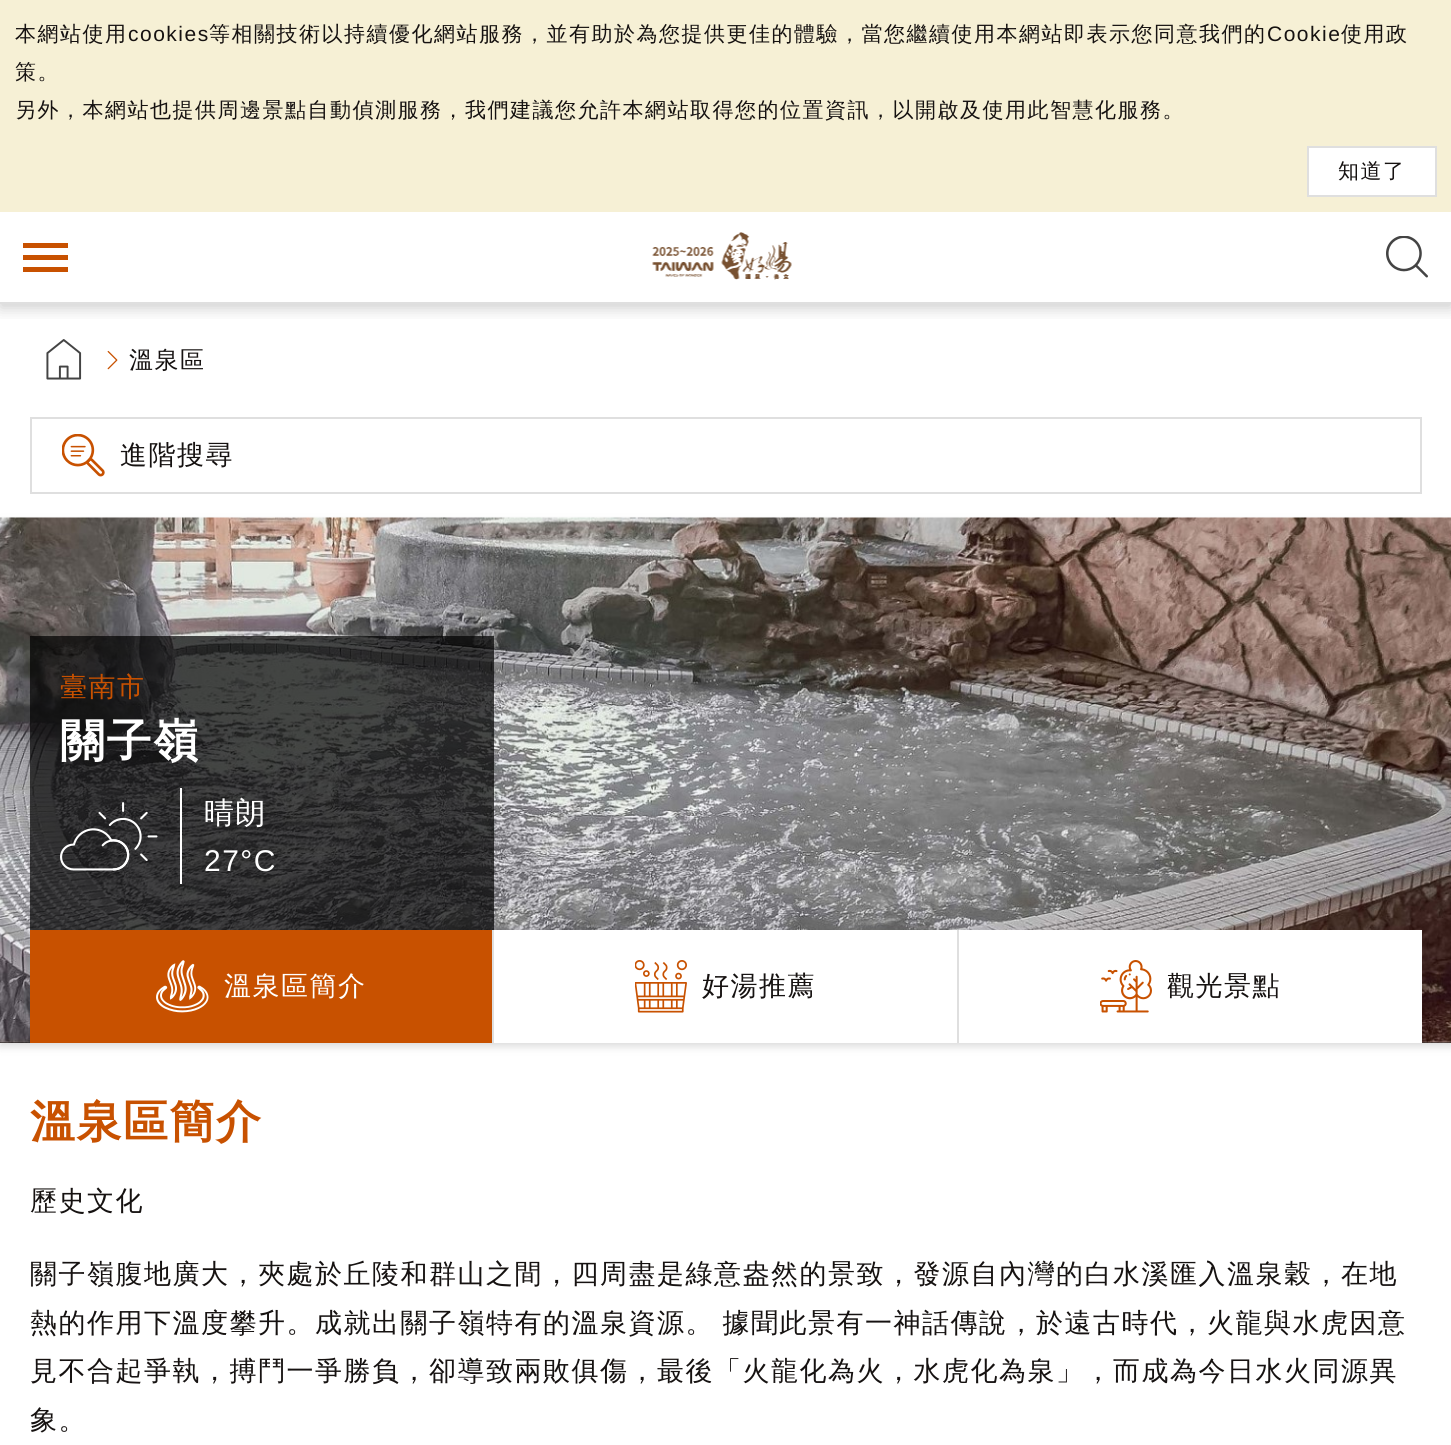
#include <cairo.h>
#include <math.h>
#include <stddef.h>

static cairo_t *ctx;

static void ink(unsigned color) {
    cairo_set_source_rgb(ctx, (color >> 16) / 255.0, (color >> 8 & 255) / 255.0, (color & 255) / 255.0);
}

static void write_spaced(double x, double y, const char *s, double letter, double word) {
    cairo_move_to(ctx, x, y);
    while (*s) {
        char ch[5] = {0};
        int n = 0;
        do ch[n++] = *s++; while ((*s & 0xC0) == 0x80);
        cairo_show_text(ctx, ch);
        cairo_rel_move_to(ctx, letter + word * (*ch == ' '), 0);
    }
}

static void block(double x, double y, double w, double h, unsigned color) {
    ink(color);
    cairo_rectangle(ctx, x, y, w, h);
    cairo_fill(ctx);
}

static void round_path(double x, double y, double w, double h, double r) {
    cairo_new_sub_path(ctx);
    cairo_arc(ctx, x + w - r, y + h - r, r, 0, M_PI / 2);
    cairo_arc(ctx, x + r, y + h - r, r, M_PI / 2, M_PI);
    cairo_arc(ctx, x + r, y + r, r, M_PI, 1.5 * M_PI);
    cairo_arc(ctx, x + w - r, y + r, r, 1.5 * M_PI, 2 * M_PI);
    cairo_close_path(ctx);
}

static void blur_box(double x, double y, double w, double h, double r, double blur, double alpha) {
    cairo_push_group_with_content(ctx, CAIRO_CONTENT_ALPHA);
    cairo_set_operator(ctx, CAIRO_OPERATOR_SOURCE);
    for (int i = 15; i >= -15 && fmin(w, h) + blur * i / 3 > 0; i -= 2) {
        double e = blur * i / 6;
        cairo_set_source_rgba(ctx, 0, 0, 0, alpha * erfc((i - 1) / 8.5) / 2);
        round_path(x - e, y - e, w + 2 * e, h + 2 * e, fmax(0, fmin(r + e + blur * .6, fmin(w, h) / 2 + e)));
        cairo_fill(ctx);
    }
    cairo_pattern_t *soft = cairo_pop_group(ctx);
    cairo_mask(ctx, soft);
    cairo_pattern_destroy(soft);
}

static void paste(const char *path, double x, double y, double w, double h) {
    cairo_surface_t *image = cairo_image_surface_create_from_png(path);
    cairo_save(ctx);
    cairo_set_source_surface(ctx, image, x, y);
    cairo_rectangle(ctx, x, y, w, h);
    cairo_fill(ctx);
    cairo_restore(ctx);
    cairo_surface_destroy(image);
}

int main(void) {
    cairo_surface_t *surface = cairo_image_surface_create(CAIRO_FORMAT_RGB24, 1451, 1445);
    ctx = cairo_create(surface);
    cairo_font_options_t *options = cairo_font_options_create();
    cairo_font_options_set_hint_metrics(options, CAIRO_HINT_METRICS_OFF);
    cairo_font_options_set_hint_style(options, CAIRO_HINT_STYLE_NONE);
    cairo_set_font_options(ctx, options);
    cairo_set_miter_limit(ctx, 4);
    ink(0xffffff);
    cairo_paint(ctx);
    cairo_save(ctx);
    cairo_rectangle(ctx, 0, 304, 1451, 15);
    cairo_clip(ctx);
    ink(0x575757);
    blur_box(0, 5, 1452, 303, 0, 7.5, 0.3);
    cairo_restore(ctx);
    block(0, 302, 1451, 2, 0xdfdfdf);
    block(0, 0, 1451, 212, 0xf6f0d5);
    cairo_select_font_face(ctx, "WenQuanYi Zen Hei Medium", CAIRO_FONT_SLANT_NORMAL, CAIRO_FONT_WEIGHT_NORMAL);
    cairo_set_font_size(ctx, 21);
    ink(0x161211);
    write_spaced(15, 41, "本網站使用", 1.5, 0);
    cairo_select_font_face(ctx, "Liberation Sans", CAIRO_FONT_SLANT_NORMAL, CAIRO_FONT_WEIGHT_NORMAL);
    write_spaced(128, 41, "cookies", 1.5, 0);
    cairo_select_font_face(ctx, "WenQuanYi Zen Hei Medium", CAIRO_FONT_SLANT_NORMAL, CAIRO_FONT_WEIGHT_NORMAL);
    write_spaced(209, 41, "等相關技術以持續優化網站服務，並有助於為您提供更佳的體驗，當您繼續使用本網站即表示您同意我們的", 1.5, 0);
    cairo_select_font_face(ctx, "Liberation Sans", CAIRO_FONT_SLANT_NORMAL, CAIRO_FONT_WEIGHT_NORMAL);
    write_spaced(1267, 41, "Cookie", 1.5, 0);
    cairo_select_font_face(ctx, "WenQuanYi Zen Hei Medium", CAIRO_FONT_SLANT_NORMAL, CAIRO_FONT_WEIGHT_NORMAL);
    write_spaced(1341, 41, "使用政", 1.5, 0);
    write_spaced(15, 79, "策。", 1.5, 0);
    write_spaced(15, 117, "另外，本網站也提供周邊景點自動偵測服務，我們建議您允許本網站取得您的位置資訊，以開啟及使用此智慧化服務。", 1.5, 0);
    ink(0xffffff);
    cairo_rectangle(ctx, 1308, 147, 128, 49);
    cairo_fill_preserve(ctx);
    ink(0xdfdfdf);
    cairo_stroke(ctx);
    ink(0x161211);
    write_spaced(1338, 178, "知道了", 1.5, 0);
    block(23, 255, 45, 5, 0xc85100);
    block(23, 243, 45, 5, 0xc85100);
    block(23, 267, 45, 5, 0xc85100);
    paste("pic1.png", 652, 232, 140, 48);
    paste("pic2.png", 1386, 236, 42, 42);
    paste("pic3.png", 46, 339, 36, 41);
    paste("pic4.png", 107, 350, 11, 20);
    cairo_set_font_size(ctx, 24);
    ink(0x161211);
    write_spaced(129, 368, "溫泉區", 1.5, 0);
    cairo_rectangle(ctx, 31, 418, 1390, 75);
    ink(0xdfdfdf);
    cairo_stroke(ctx);
    paste("pic5.png", 62, 434, 43, 43);
    cairo_set_font_size(ctx, 27);
    ink(0x161211);
    write_spaced(120, 464, "進階搜尋", 1.5, 0);
    ink(0x575757);
    blur_box(0, 522, 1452, 525, 0, 4, 0.2);
    block(0, 1042, 1451, 1, 0x161211);
    paste("pic6.png", 0, 517, 1451, 526);
    cairo_set_source_rgba(ctx, 0, 0, 0, 0.7);
    cairo_rectangle(ctx, 30, 636, 464, 294);
    cairo_fill(ctx);
    ink(0xc85100);
    write_spaced(60, 696, "臺南市", 1.5, 0);
    cairo_select_font_face(ctx, "WenQuanYi Zen Hei", CAIRO_FONT_SLANT_NORMAL, CAIRO_FONT_WEIGHT_BOLD);
    cairo_set_font_size(ctx, 45);
    ink(0xffffff);
    write_spaced(60, 756, "關子嶺", 1.5, 0);
    paste("pic7.png", 60, 802, 98, 69);
    block(180, 788, 2, 96, 0xffffff);
    cairo_select_font_face(ctx, "WenQuanYi Zen Hei Medium", CAIRO_FONT_SLANT_NORMAL, CAIRO_FONT_WEIGHT_NORMAL);
    cairo_set_font_size(ctx, 30);
    write_spaced(204, 823, "晴朗", 1.5, 0);
    cairo_select_font_face(ctx, "Liberation Sans", CAIRO_FONT_SLANT_NORMAL, CAIRO_FONT_WEIGHT_NORMAL);
    write_spaced(204, 871, "27°C", 1.5, 0);
    block(30, 930, 462, 113, 0xc85100);
    block(492, 930, 2, 113, 0xdfdfdf);
    paste("pic8.png", 156, 960, 53, 53);
    cairo_select_font_face(ctx, "WenQuanYi Zen Hei Medium", CAIRO_FONT_SLANT_NORMAL, CAIRO_FONT_WEIGHT_NORMAL);
    cairo_set_font_size(ctx, 27);
    ink(0xffffff);
    write_spaced(224, 995, "溫泉區簡介", 1.5, 0);
    block(494, 930, 463, 113, 0xffffff);
    block(957, 930, 2, 113, 0xdfdfdf);
    paste("pic9.png", 635, 960, 52, 53);
    ink(0x161211);
    write_spaced(702, 995, "好湯推薦", 1.5, 0);
    block(959, 930, 463, 113, 0xffffff);
    paste("pic10.png", 1100, 960, 52, 53);
    ink(0x161211);
    write_spaced(1167, 995, "觀光景點", 1.5, 0);
    cairo_select_font_face(ctx, "WenQuanYi Zen Hei", CAIRO_FONT_SLANT_NORMAL, CAIRO_FONT_WEIGHT_BOLD);
    cairo_set_font_size(ctx, 45);
    ink(0xc85100);
    write_spaced(30, 1137, "溫泉區簡介", 1.5, 0);
    cairo_select_font_face(ctx, "WenQuanYi Zen Hei Medium", CAIRO_FONT_SLANT_NORMAL, CAIRO_FONT_WEIGHT_NORMAL);
    cairo_set_font_size(ctx, 27);
    ink(0x161211);
    write_spaced(30, 1210, "歷史文化", 1.5, 0);
    write_spaced(30, 1283, "關子嶺腹地廣大，夾處於丘陵和群山之間，四周盡是綠意盎然的景致，發源自內灣的白水溪匯入溫泉穀，在地", 1.5, 0);
    write_spaced(30, 1332, "熱的作用下溫度攀升。成就出關子嶺特有的溫泉資源。 據聞此景有一神話傳說，於遠古時代，火龍與水虎因意", 1.5, -1);
    write_spaced(30, 1380, "見不合起爭執，搏鬥一爭勝負，卻導致兩敗俱傷，最後「火龍化為火，水虎化為泉」，而成為今日水火同源異", 1.5, 0);
    write_spaced(30, 1429, "象。", 1.5, 0);
    cairo_surface_write_to_png(surface, "screenshot.png");
    cairo_font_options_destroy(options);
    cairo_destroy(ctx);
    cairo_surface_destroy(surface);
    return 0;
}
